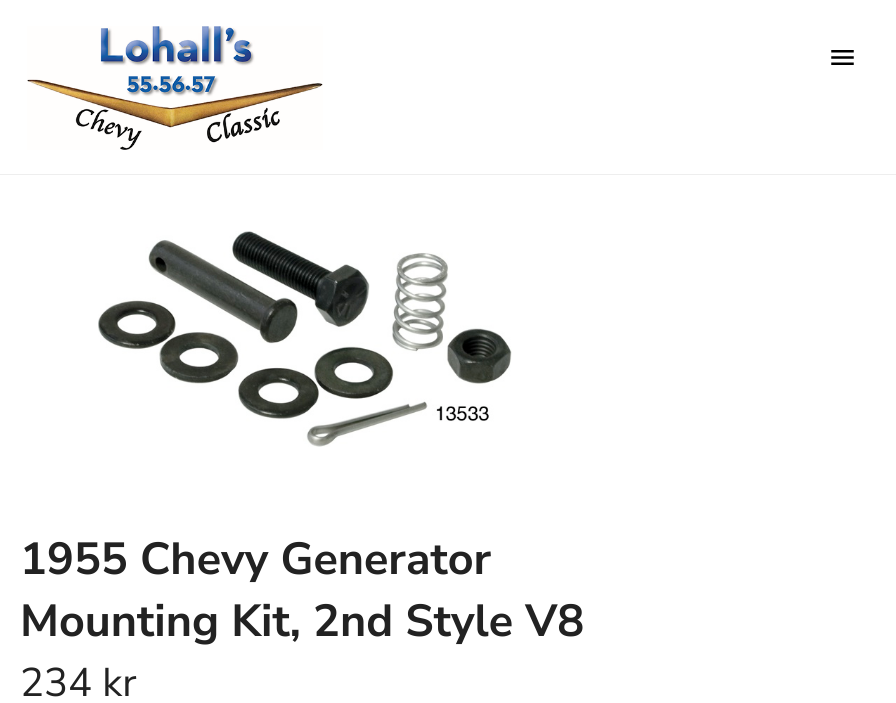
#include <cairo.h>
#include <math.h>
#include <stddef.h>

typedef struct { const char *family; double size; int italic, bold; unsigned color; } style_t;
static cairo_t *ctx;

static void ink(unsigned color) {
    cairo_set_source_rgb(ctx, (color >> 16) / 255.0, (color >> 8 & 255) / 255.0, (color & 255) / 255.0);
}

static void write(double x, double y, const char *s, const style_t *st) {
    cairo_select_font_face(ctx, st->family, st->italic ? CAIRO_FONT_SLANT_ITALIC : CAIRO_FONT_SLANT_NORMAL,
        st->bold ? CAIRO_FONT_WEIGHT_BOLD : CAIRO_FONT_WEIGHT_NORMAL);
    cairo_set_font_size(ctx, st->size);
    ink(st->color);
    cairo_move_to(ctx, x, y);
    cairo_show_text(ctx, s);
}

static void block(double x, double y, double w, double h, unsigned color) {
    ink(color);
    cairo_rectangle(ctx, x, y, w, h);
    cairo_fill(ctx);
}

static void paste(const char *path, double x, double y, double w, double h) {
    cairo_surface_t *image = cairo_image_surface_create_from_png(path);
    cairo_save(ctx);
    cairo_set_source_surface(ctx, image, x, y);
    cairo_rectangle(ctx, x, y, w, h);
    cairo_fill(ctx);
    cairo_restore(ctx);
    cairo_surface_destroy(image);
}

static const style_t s1 = {"Nunito Sans", 44.9, 0, 1, 0x222222};
static const style_t s2 = {"Nunito Sans", 40, 0, 0, 0x222222};

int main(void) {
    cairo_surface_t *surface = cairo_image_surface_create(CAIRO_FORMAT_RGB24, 896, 703);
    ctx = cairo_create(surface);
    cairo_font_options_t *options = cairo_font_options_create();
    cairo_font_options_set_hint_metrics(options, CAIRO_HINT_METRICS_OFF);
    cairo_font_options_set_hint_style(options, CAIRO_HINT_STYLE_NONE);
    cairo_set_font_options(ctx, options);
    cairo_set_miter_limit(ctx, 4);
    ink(0xffffff);
    cairo_paint(ctx);
    block(0, 174, 896, 1, 0xeeeeee);
    paste("pic1.png", 27, 26, 296, 124);
    paste("pic2.png", 831, 50, 23, 15);
    paste("pic3.png", 98, 231, 414, 216);
    write(20, 574, "1955 Chevy Generator", &s1);
    write(20, 636, "Mounting Kit, 2nd Style V8", &s1);
    write(20, 696, "234 kr", &s2);
    cairo_surface_write_to_png(surface, "screenshot.png");
    cairo_font_options_destroy(options);
    cairo_destroy(ctx);
    cairo_surface_destroy(surface);
    return 0;
}
